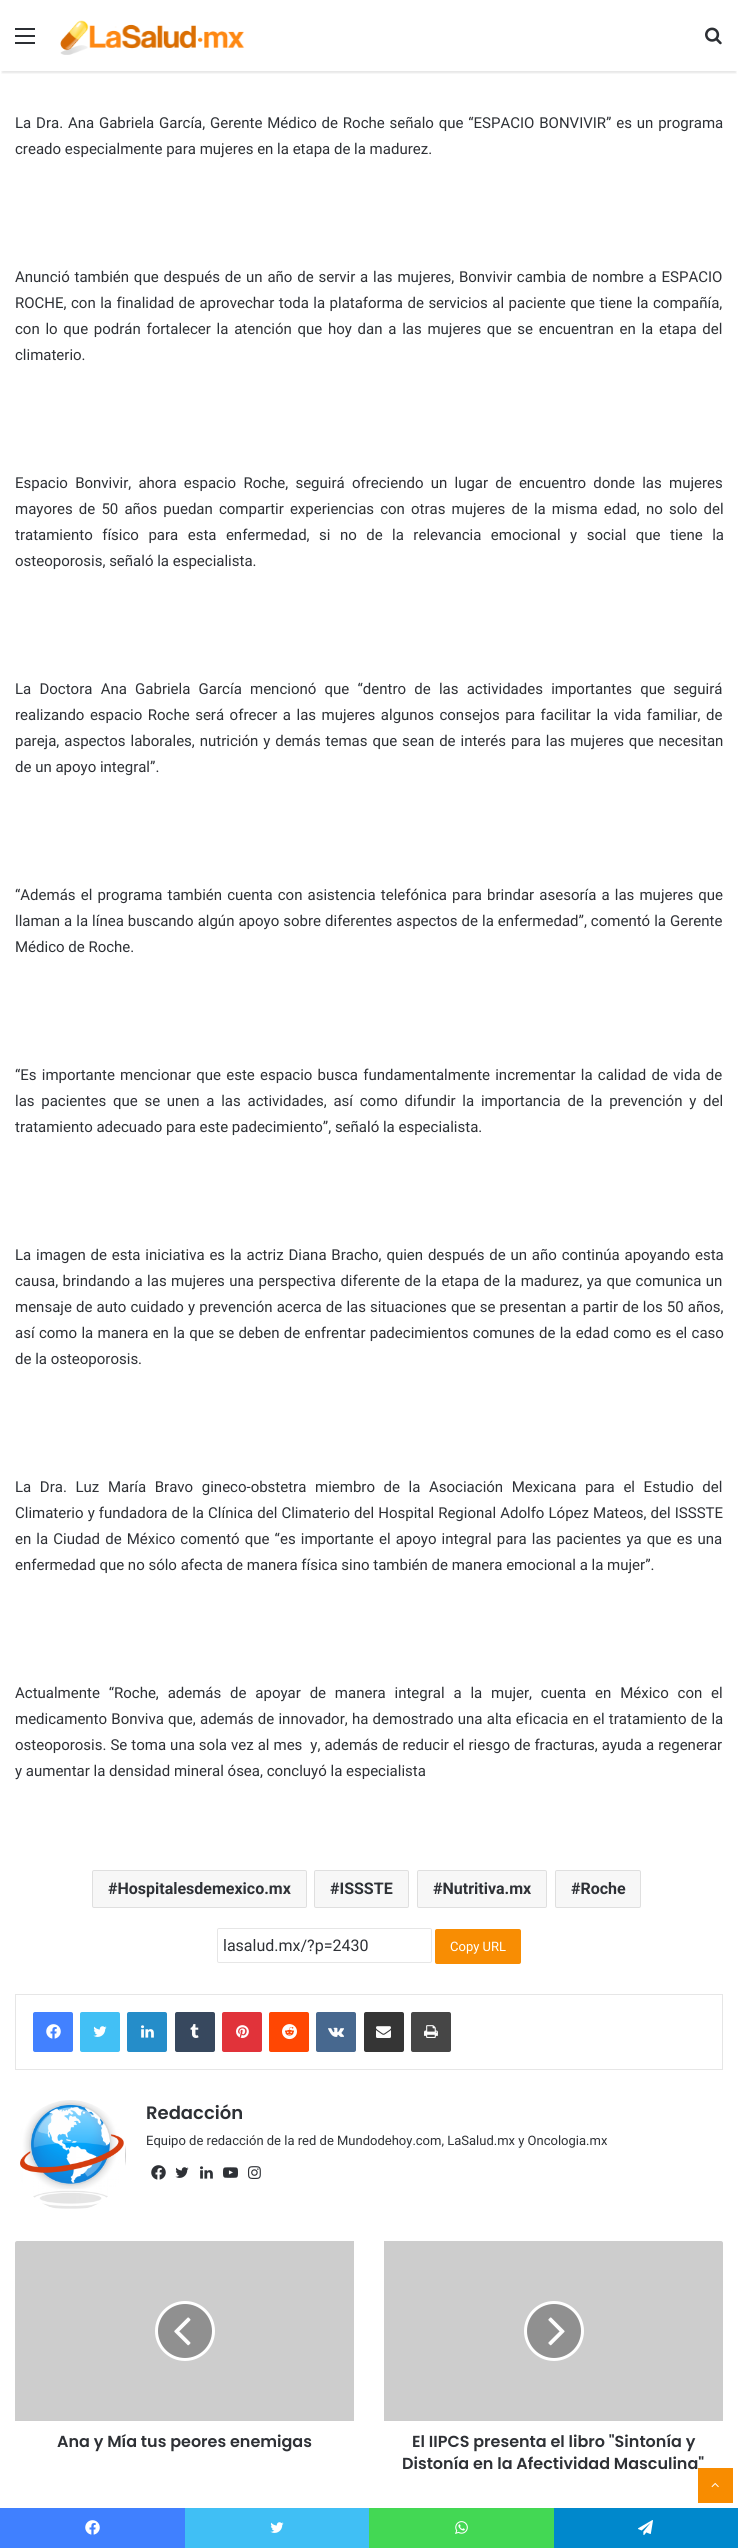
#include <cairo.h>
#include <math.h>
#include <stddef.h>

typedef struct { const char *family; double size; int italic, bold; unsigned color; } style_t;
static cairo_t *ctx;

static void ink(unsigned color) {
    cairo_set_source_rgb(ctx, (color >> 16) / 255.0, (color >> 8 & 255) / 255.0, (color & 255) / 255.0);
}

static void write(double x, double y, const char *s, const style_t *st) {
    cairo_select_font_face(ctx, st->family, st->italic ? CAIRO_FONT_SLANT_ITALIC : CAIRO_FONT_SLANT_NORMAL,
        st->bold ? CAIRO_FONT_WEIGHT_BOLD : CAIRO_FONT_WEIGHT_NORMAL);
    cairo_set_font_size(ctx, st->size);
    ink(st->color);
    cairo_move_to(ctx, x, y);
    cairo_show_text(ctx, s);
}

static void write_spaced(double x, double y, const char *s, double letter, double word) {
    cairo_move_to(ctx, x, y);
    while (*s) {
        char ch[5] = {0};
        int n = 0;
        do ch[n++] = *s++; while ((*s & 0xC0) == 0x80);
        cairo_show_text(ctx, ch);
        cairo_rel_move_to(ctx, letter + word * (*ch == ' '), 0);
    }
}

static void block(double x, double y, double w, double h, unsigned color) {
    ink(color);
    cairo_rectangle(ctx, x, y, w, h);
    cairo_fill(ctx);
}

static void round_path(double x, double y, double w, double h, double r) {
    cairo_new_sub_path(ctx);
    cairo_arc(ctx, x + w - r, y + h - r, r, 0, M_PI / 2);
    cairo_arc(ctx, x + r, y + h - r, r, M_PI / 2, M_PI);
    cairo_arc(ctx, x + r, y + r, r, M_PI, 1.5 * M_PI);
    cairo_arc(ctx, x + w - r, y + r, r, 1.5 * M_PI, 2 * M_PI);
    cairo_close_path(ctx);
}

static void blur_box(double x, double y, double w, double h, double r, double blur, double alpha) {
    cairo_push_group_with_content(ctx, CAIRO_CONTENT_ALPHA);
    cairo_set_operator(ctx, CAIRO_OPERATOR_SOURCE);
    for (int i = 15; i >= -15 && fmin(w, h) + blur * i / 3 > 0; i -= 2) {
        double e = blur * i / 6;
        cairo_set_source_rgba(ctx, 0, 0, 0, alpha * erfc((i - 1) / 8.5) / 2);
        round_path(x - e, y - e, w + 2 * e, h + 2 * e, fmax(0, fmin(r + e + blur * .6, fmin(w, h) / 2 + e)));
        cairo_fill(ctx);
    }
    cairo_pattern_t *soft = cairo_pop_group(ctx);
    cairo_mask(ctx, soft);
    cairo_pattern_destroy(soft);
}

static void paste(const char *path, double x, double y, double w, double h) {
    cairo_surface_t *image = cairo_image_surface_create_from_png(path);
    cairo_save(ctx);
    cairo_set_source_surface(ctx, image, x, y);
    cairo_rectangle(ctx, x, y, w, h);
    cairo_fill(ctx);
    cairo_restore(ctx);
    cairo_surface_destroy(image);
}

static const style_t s1 = {"Roboto", 15, 0, 0, 0x2e3136};
static const style_t s2 = {"Roboto", 16, 0, 1, 0x2e3136};
static const style_t s3 = {"Roboto", 16, 0, 0, 0x2e3136};
static const style_t s4 = {"Roboto", 13, 0, 0, 0xffffff};
static const style_t s5 = {"Poppins SemiBold", 18, 0, 0, 0x2e3136};
static const style_t s6 = {"Roboto", 13, 0, 0, 0x2e3136};
static const style_t s7 = {"Poppins SemiBold", 16, 0, 0, 0x2e3136};

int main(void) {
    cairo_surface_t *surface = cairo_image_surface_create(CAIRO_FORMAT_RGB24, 738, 2548);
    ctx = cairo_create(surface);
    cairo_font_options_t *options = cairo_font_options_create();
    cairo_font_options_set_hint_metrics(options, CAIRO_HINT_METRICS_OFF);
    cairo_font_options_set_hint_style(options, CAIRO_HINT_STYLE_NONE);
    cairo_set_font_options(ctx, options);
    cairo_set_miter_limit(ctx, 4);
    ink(0xffffff);
    cairo_paint(ctx);
    cairo_save(ctx);
    cairo_rectangle(ctx, 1, 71, 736, 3);
    cairo_clip(ctx);
    ink(0x000000);
    blur_box(2, 6, 734, 67, 0, 1, 0.1);
    cairo_restore(ctx);
    block(15, 35, 20, 2, 0x2c2f34);
    block(15, 28, 20, 2, 0x2c2f34);
    block(15, 42, 20, 2, 0x2c2f34);
    paste("pic1.png", 60, 20, 185, 35);
    paste("pic2.png", 705, 27, 17, 18);
    cairo_select_font_face(ctx, "Roboto", CAIRO_FONT_SLANT_NORMAL, CAIRO_FONT_WEIGHT_NORMAL);
    cairo_set_font_size(ctx, 15);
    ink(0x2e3136);
    write_spaced(15, 128, "La Dra. Ana Gabriela García, Gerente Médico de Roche señalo que “ESPACIO BONVIVIR” es un programa", 0, 1.1);
    write(15, 154, "creado especialmente para mujeres en la etapa de la madurez.", &s1);
    write_spaced(15, 282, "Anunció también que después de un año de servir a las mujeres, Bonvivir cambia de nombre a ESPACIO", 0, 1.1);
    write_spaced(15, 308, "ROCHE, con la finalidad de aprovechar toda la plataforma de servicios al paciente que tiene la compañía,", 0, 0.75);
    write_spaced(15, 334, "con lo que podrán fortalecer la atención que hoy dan a las mujeres que se encuentran en la etapa del", 0, 2);
    write(15, 360, "climaterio.", &s1);
    write_spaced(15, 488, "Espacio Bonvivir, ahora espacio Roche, seguirá ofreciendo un lugar de encuentro donde las mujeres", 0, 3.5);
    write_spaced(15, 514, "mayores de 50 años puedan compartir experiencias con otras mujeres de la misma edad, no solo del", 0, 2.4);
    write_spaced(15, 540, "tratamiento físico para esta enfermedad, si no de la relevancia emocional y social que tiene la", 0, 5.75);
    write(15, 566, "osteoporosis, señaló la especialista.", &s1);
    write_spaced(15, 694, "La Doctora Ana Gabriela García mencionó que “dentro de las actividades importantes que seguirá", 0, 4.5);
    write_spaced(15, 720, "realizando espacio Roche será ofrecer a las mujeres algunos consejos para facilitar la vida familiar, de", 0, 1.8);
    write_spaced(15, 746, "pareja, aspectos laborales, nutrición y demás temas que sean de interés para las mujeres que necesitan", 0, 1.2);
    write(15, 772, "de un apoyo integral”.", &s1);
    write_spaced(15, 900, "“Además el programa también cuenta con asistencia telefónica para brindar asesoría a las mujeres que", 0, 1.4);
    write_spaced(15, 926, "llaman a la línea buscando algún apoyo sobre diferentes aspectos de la enfermedad”, comentó la Gerente", 0, 0.3);
    write(15, 952, "Médico de Roche.", &s1);
    write_spaced(15, 1080, "“Es importante mencionar que este espacio busca fundamentalmente incrementar la calidad de vida de", 0, 1.5);
    write_spaced(15, 1106, "las pacientes que se unen a las actividades, así como difundir la importancia de la prevención y del", 0, 3);
    write(15, 1132, "tratamiento adecuado para este padecimiento”, señaló la especialista.", &s1);
    write_spaced(15, 1260, "La imagen de esta iniciativa es la actriz Diana Bracho, quien después de un año continúa apoyando esta", 0, 1.1);
    write_spaced(15, 1286, "causa, brindando a las mujeres una perspectiva diferente de la etapa de la madurez, ya que comunica un", 0, 0.75);
    write_spaced(15, 1312, "mensaje de auto cuidado y prevención acerca de las situaciones que se presentan a partir de los 50 años,", 0, 0.4);
    write_spaced(15, 1338, "así como la manera en la que se deben de enfrentar padecimientos comunes de la edad como es el caso", 0, 0.6);
    write(15, 1364, "de la osteoporosis.", &s1);
    write_spaced(15, 1492, "La Dra. Luz María Bravo gineco-obstetra miembro de la Asociación Mexicana para el Estudio del", 0, 4.9);
    write_spaced(15, 1518, "Climaterio y fundadora de la Clínica del Climaterio del Hospital Regional Adolfo López Mateos, del ISSSTE", 0, 0.4);
    write_spaced(15, 1544, "en la Ciudad de México comentó que “es importante el apoyo integral para las pacientes ya que es una", 0, 1.4);
    write(15, 1570, "enfermedad que no sólo afecta de manera física sino también de manera emocional a la mujer”.", &s1);
    write_spaced(15, 1698, "Actualmente “Roche, además de apoyar de manera integral a la mujer, cuenta en México con el", 0, 5.1);
    write_spaced(15, 1724, "medicamento Bonviva que, además de innovador, ha demostrado una alta eficacia en el tratamiento de la", 0, 0.5);
    write_spaced(15, 1750, "osteoporosis. Se toma una sola vez al mes  y, además de reducir el riesgo de fracturas, ayuda a regenerar", 0, 0.3);
    write(15, 1776, "y aumentar la densidad mineral ósea, concluyó la especialista", &s1);
    ink(0xf7f7f7);
    round_path(92.5, 1870.5, 214, 37, 1.5);
    cairo_fill_preserve(ctx);
    ink(0xdfdfdf);
    cairo_set_line_width(ctx, 1);
    cairo_stroke(ctx);
    write(108, 1894, "#Hospitalesdemexico.mx", &s2);
    ink(0xf7f7f7);
    round_path(314.5, 1870.5, 94, 37, 1.5);
    cairo_fill_preserve(ctx);
    ink(0xdfdfdf);
    cairo_stroke(ctx);
    write(330, 1894, "#ISSSTE", &s2);
    ink(0xf7f7f7);
    round_path(417.5, 1870.5, 129, 37, 1.5);
    cairo_fill_preserve(ctx);
    ink(0xdfdfdf);
    cairo_stroke(ctx);
    write(433, 1894, "#Nutritiva.mx", &s2);
    ink(0xf7f7f7);
    round_path(555.5, 1870.5, 85, 37, 1.5);
    cairo_fill_preserve(ctx);
    ink(0xdfdfdf);
    cairo_stroke(ctx);
    write(571, 1894, "#Roche", &s2);
    round_path(217.5, 1928.5, 214, 34, 1.5);
    ink(0xe6e6e6);
    cairo_stroke(ctx);
    write(223, 1951, "lasalud.mx/?p=2430", &s3);
    ink(0xf88d03);
    round_path(435, 1929, 86, 35, 2);
    cairo_fill(ctx);
    write(450, 1951, "Copy URL", &s4);
    cairo_rectangle(ctx, 15.5, 1994.5, 707, 75);
    ink(0xe6e6e6);
    cairo_stroke(ctx);
    ink(0x4281ff);
    round_path(33, 2012, 40, 40, 2);
    cairo_fill(ctx);
    paste("pic3.png", 46, 2024, 15, 15);
    ink(0x42c0f5);
    round_path(80, 2012, 40, 40, 2);
    cairo_fill(ctx);
    paste("pic4.png", 93, 2026, 14, 11);
    ink(0x258dc9);
    round_path(127, 2012, 40, 40, 2);
    cairo_fill(ctx);
    paste("pic5.png", 141, 2025, 13, 13);
    ink(0x37485e);
    round_path(175, 2012, 40, 40, 2);
    cairo_fill(ctx);
    paste("pic6.png", 190, 2024, 9, 14);
    ink(0xe1333a);
    round_path(222, 2012, 40, 40, 2);
    cairo_fill(ctx);
    paste("pic7.png", 236, 2025, 13, 13);
    ink(0xff4703);
    round_path(269, 2012, 40, 40, 2);
    cairo_fill(ctx);
    paste("pic8.png", 282, 2024, 15, 16);
    ink(0x47688f);
    round_path(316, 2012, 40, 40, 2);
    cairo_fill(ctx);
    paste("pic9.png", 328, 2027, 16, 10);
    ink(0x353535);
    round_path(364, 2012, 40, 40, 2);
    cairo_fill(ctx);
    paste("pic10.png", 376, 2026, 15, 12);
    ink(0x464646);
    round_path(411, 2012, 40, 40, 2);
    cairo_fill(ctx);
    paste("pic11.png", 424, 2025, 14, 13);
    paste("pic12.png", 20, 2100, 106, 109);
    write(146, 2119, "Redacción", &s5);
    write(146, 2145, "Equipo de redacción de la red de Mundodehoy.com, LaSalud.mx y Oncologia.mx", &s6);
    paste("pic13.png", 151, 2165, 15, 15);
    paste("pic14.png", 175, 2167, 14, 11);
    paste("pic15.png", 200, 2166, 13, 13);
    paste("pic16.png", 223, 2167, 15, 11);
    paste("pic17.png", 248, 2166, 13, 13);
    ink(0xcdcdcd);
    cairo_new_path(ctx);
    cairo_move_to(ctx, 17, 2241);
    cairo_line_to(ctx, 354, 2241);
    cairo_line_to(ctx, 354, 2421);
    cairo_line_to(ctx, 15, 2421);
    cairo_line_to(ctx, 15, 2243);
    cairo_curve_to(ctx, 15, 2242, 16, 2241, 17, 2241);
    cairo_close_path(ctx);
    cairo_fill(ctx);
    ink(0x909090);
    cairo_arc(ctx, 185, 2331, 28.5, 0, 2 * M_PI);
    cairo_fill_preserve(ctx);
    ink(0xffffff);
    cairo_set_line_width(ctx, 3);
    cairo_stroke(ctx);
    paste("pic18.png", 174, 2317, 17, 29);
    write(57, 2447, "Ana y Mía tus peores enemigas", &s7);
    ink(0xcdcdcd);
    cairo_new_path(ctx);
    cairo_move_to(ctx, 384, 2241);
    cairo_line_to(ctx, 721, 2241);
    cairo_curve_to(ctx, 722, 2241, 723, 2242, 723, 2243);
    cairo_line_to(ctx, 723, 2421);
    cairo_line_to(ctx, 384, 2421);
    cairo_close_path(ctx);
    cairo_fill(ctx);
    ink(0x909090);
    cairo_arc(ctx, 554, 2331, 28.5, 0, 2 * M_PI);
    cairo_fill_preserve(ctx);
    ink(0xffffff);
    cairo_stroke(ctx);
    paste("pic19.png", 548, 2317, 17, 29);
    write(412, 2447, "El IIPCS presenta el libro \"Sintonía y", &s7);
    write(402, 2469, "Distonía en la Afectividad Masculina\"", &s7);
    block(698, 2468, 35, 35, 0xf88c00);
    paste("pic20.png", 711, 2482, 8, 6);
    block(0, 2508, 185, 40, 0x4080ff);
    paste("pic21.png", 85, 2520, 15, 15);
    block(185, 2508, 184, 40, 0x40bff5);
    paste("pic22.png", 270, 2522, 14, 11);
    block(369, 2508, 185, 40, 0x43d854);
    paste("pic23.png", 455, 2521, 13, 13);
    block(554, 2508, 184, 40, 0x0088cc);
    paste("pic24.png", 638, 2520, 15, 15);
    cairo_surface_write_to_png(surface, "screenshot.png");
    cairo_font_options_destroy(options);
    cairo_destroy(ctx);
    cairo_surface_destroy(surface);
    return 0;
}
